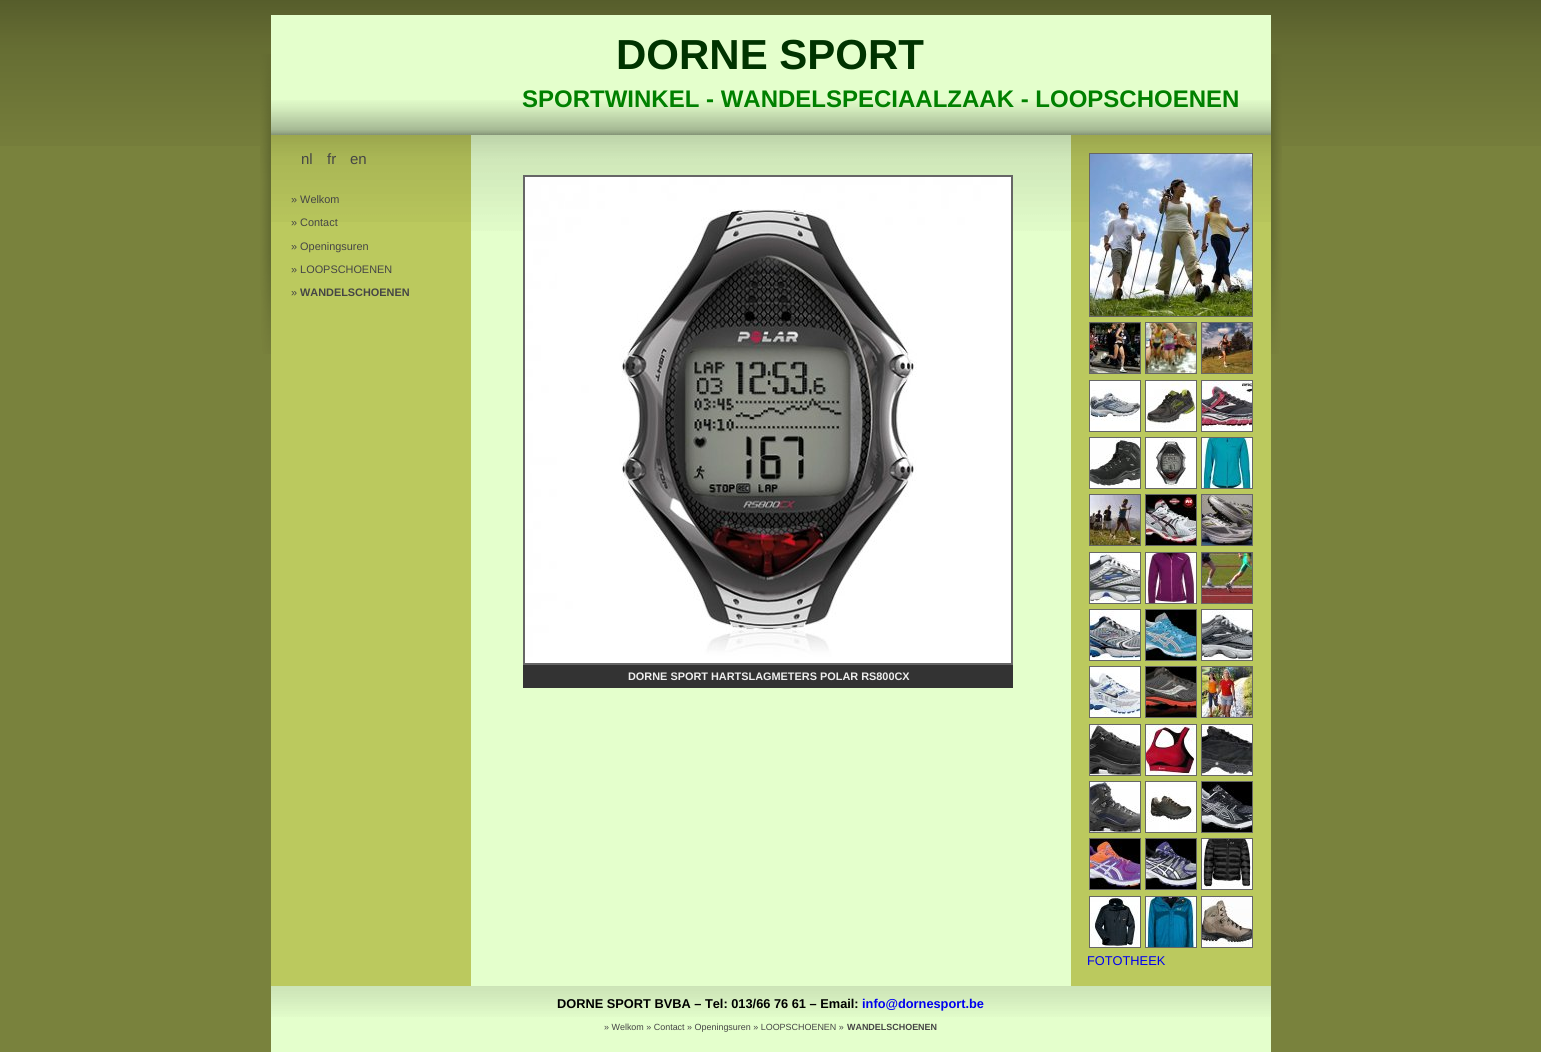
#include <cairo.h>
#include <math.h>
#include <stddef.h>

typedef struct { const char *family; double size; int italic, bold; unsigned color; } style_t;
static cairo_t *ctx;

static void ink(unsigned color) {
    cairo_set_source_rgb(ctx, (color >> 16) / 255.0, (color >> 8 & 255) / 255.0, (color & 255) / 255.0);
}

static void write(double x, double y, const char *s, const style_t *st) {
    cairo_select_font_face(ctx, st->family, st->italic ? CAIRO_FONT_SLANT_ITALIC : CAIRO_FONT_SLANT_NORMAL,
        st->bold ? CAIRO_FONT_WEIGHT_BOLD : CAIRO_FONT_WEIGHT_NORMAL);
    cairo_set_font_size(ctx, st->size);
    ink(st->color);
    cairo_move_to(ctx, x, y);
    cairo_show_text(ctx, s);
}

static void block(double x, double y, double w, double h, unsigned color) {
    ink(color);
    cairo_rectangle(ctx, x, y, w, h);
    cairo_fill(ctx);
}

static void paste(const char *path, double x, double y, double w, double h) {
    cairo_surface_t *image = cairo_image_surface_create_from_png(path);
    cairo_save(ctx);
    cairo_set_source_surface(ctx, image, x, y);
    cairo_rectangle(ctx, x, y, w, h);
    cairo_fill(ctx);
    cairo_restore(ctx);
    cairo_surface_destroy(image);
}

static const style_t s1 = {"Liberation Sans", 42, 0, 1, 0x003300};
static const style_t s2 = {"Liberation Sans", 24, 0, 1, 0x008000};
static const style_t s3 = {"Liberation Sans", 15, 0, 0, 0x454545};
static const style_t s4 = {"Liberation Sans", 10.9, 0, 0, 0x454545};
static const style_t s5 = {"Liberation Sans", 10.9, 0, 1, 0x454545};
static const style_t s6 = {"Liberation Sans", 10.9, 0, 1, 0xeeeeee};
static const style_t s7 = {"Liberation Sans", 12.8, 0, 0, 0x0000ee};
static const style_t s8 = {"Liberation Sans", 12.8, 0, 1, 0x000000};
static const style_t s9 = {"Liberation Sans", 12.8, 0, 1, 0x0000ee};
static const style_t s10 = {"Liberation Sans", 8.95, 0, 0, 0x454545};
static const style_t s11 = {"Liberation Sans", 8.95, 0, 1, 0x454545};

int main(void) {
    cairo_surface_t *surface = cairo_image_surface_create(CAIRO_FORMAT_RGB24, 1541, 1052);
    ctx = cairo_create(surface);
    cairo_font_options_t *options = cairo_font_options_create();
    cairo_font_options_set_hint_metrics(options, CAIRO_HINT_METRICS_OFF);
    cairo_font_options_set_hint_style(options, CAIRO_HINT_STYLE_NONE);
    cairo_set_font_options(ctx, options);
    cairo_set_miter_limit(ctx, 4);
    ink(0x79823d);
    cairo_paint(ctx);
    paste("pic1.png", 0, 0, 1541, 146);
    paste("pic2.png", 260, 54, 1022, 300);
    block(271, 15, 1000, 85, 0xe4ffcc);
    paste("pic3.png", 271, 100, 1000, 35);
    write(616, 69, "DORNE SPORT", &s1);
    write(522, 107, "SPORTWINKEL - WANDELSPECIAALZAAK - LOOPSCHOENEN", &s2);
    block(1071, 222, 200, 764, 0xbbc95e);
    paste("pic4.png", 1071, 135, 200, 87);
    block(471, 231, 600, 755, 0xe4ffcc);
    paste("pic5.png", 471, 135, 600, 96);
    block(271, 222, 200, 764, 0xbbc95e);
    paste("pic4.png", 271, 135, 200, 87);
    write(301, 164, "nl", &s3);
    write(327, 164, "fr", &s3);
    write(350, 164, "en", &s3);
    write(291, 203, "» Welkom", &s4);
    write(291, 226, "» Contact", &s4);
    write(291, 250, "» Openingsuren", &s4);
    write(291, 273, "» LOOPSCHOENEN", &s4);
    write(291, 296, "»", &s4);
    write(300, 296, "WANDELSCHOENEN", &s5);
    cairo_rectangle(ctx, 524, 176, 488, 488);
    ink(0x666666);
    cairo_stroke(ctx);
    paste("pic6.png", 525, 177, 486, 486);
    block(523, 665, 490, 23, 0x333333);
    write(628, 680, "DORNE SPORT HARTSLAGMETERS POLAR RS800CX", &s6);
    cairo_rectangle(ctx, 1089.5, 153.5, 163, 163);
    ink(0x666666);
    cairo_set_line_width(ctx, 1);
    cairo_stroke(ctx);
    paste("pic7.png", 1090, 154, 162, 162);
    cairo_rectangle(ctx, 1089.5, 322.5, 51, 51);
    cairo_stroke(ctx);
    cairo_rectangle(ctx, 1145.5, 322.5, 51, 51);
    cairo_stroke(ctx);
    cairo_rectangle(ctx, 1201.5, 322.5, 51, 51);
    cairo_stroke(ctx);
    paste("pic8.png", 1090, 323, 50, 50);
    paste("pic9.png", 1146, 323, 50, 50);
    paste("pic10.png", 1202, 323, 50, 50);
    cairo_rectangle(ctx, 1089.5, 380.5, 51, 51);
    cairo_stroke(ctx);
    cairo_rectangle(ctx, 1145.5, 380.5, 51, 51);
    cairo_stroke(ctx);
    cairo_rectangle(ctx, 1201.5, 380.5, 51, 51);
    cairo_stroke(ctx);
    paste("pic11.png", 1090, 381, 50, 50);
    paste("pic12.png", 1146, 381, 50, 50);
    paste("pic13.png", 1202, 381, 50, 50);
    cairo_rectangle(ctx, 1089.5, 437.5, 51, 51);
    cairo_stroke(ctx);
    cairo_rectangle(ctx, 1145.5, 437.5, 51, 51);
    cairo_stroke(ctx);
    cairo_rectangle(ctx, 1201.5, 437.5, 51, 51);
    cairo_stroke(ctx);
    paste("pic14.png", 1090, 438, 50, 50);
    paste("pic15.png", 1146, 438, 50, 50);
    paste("pic16.png", 1202, 438, 50, 50);
    cairo_rectangle(ctx, 1089.5, 494.5, 51, 51);
    cairo_stroke(ctx);
    cairo_rectangle(ctx, 1145.5, 494.5, 51, 51);
    cairo_stroke(ctx);
    cairo_rectangle(ctx, 1201.5, 494.5, 51, 51);
    cairo_stroke(ctx);
    paste("pic17.png", 1090, 495, 50, 50);
    paste("pic18.png", 1146, 495, 50, 50);
    paste("pic19.png", 1202, 495, 50, 50);
    cairo_rectangle(ctx, 1089.5, 552.5, 51, 51);
    cairo_stroke(ctx);
    cairo_rectangle(ctx, 1145.5, 552.5, 51, 51);
    cairo_stroke(ctx);
    cairo_rectangle(ctx, 1201.5, 552.5, 51, 51);
    cairo_stroke(ctx);
    paste("pic20.png", 1090, 553, 50, 50);
    paste("pic21.png", 1146, 553, 50, 50);
    paste("pic22.png", 1202, 553, 50, 50);
    cairo_rectangle(ctx, 1089.5, 609.5, 51, 51);
    cairo_stroke(ctx);
    cairo_rectangle(ctx, 1145.5, 609.5, 51, 51);
    cairo_stroke(ctx);
    cairo_rectangle(ctx, 1201.5, 609.5, 51, 51);
    cairo_stroke(ctx);
    paste("pic23.png", 1090, 610, 50, 50);
    paste("pic24.png", 1146, 610, 50, 50);
    paste("pic25.png", 1202, 610, 50, 50);
    cairo_rectangle(ctx, 1089.5, 666.5, 51, 51);
    cairo_stroke(ctx);
    cairo_rectangle(ctx, 1145.5, 666.5, 51, 51);
    cairo_stroke(ctx);
    cairo_rectangle(ctx, 1201.5, 666.5, 51, 51);
    cairo_stroke(ctx);
    paste("pic26.png", 1090, 667, 50, 50);
    paste("pic27.png", 1146, 667, 50, 50);
    paste("pic28.png", 1202, 667, 50, 50);
    cairo_rectangle(ctx, 1089.5, 724.5, 51, 51);
    cairo_stroke(ctx);
    cairo_rectangle(ctx, 1145.5, 724.5, 51, 51);
    cairo_stroke(ctx);
    cairo_rectangle(ctx, 1201.5, 724.5, 51, 51);
    cairo_stroke(ctx);
    paste("pic29.png", 1090, 725, 50, 50);
    paste("pic30.png", 1146, 725, 50, 50);
    paste("pic31.png", 1202, 725, 50, 50);
    cairo_rectangle(ctx, 1089.5, 781.5, 51, 51);
    cairo_stroke(ctx);
    cairo_rectangle(ctx, 1145.5, 781.5, 51, 51);
    cairo_stroke(ctx);
    cairo_rectangle(ctx, 1201.5, 781.5, 51, 51);
    cairo_stroke(ctx);
    paste("pic32.png", 1090, 782, 50, 50);
    paste("pic33.png", 1146, 782, 50, 50);
    paste("pic34.png", 1202, 782, 50, 50);
    cairo_rectangle(ctx, 1089.5, 838.5, 51, 51);
    cairo_stroke(ctx);
    cairo_rectangle(ctx, 1145.5, 838.5, 51, 51);
    cairo_stroke(ctx);
    cairo_rectangle(ctx, 1201.5, 838.5, 51, 51);
    cairo_stroke(ctx);
    paste("pic35.png", 1090, 839, 50, 50);
    paste("pic36.png", 1146, 839, 50, 50);
    paste("pic37.png", 1202, 839, 50, 50);
    cairo_rectangle(ctx, 1089.5, 896.5, 51, 51);
    cairo_stroke(ctx);
    cairo_rectangle(ctx, 1145.5, 896.5, 51, 51);
    cairo_stroke(ctx);
    cairo_rectangle(ctx, 1201.5, 896.5, 51, 51);
    cairo_stroke(ctx);
    paste("pic38.png", 1090, 897, 50, 50);
    paste("pic39.png", 1146, 897, 50, 50);
    paste("pic40.png", 1202, 897, 50, 50);
    write(1087, 965, "FOTOTHEEK", &s7);
    block(271, 1017, 1000, 35, 0xe4ffcc);
    paste("pic41.png", 271, 986, 1000, 31);
    write(557, 1008, "DORNE SPORT BVBA – Tel: 013/66 76 61 – Email:", &s8);
    write(862, 1008, "info@dornesport.be", &s9);
    write(604, 1030, "» Welkom » Contact » Openingsuren » LOOPSCHOENEN »", &s10);
    write(847, 1030, "WANDELSCHOENEN", &s11);
    cairo_surface_write_to_png(surface, "screenshot.png");
    cairo_font_options_destroy(options);
    cairo_destroy(ctx);
    cairo_surface_destroy(surface);
    return 0;
}
